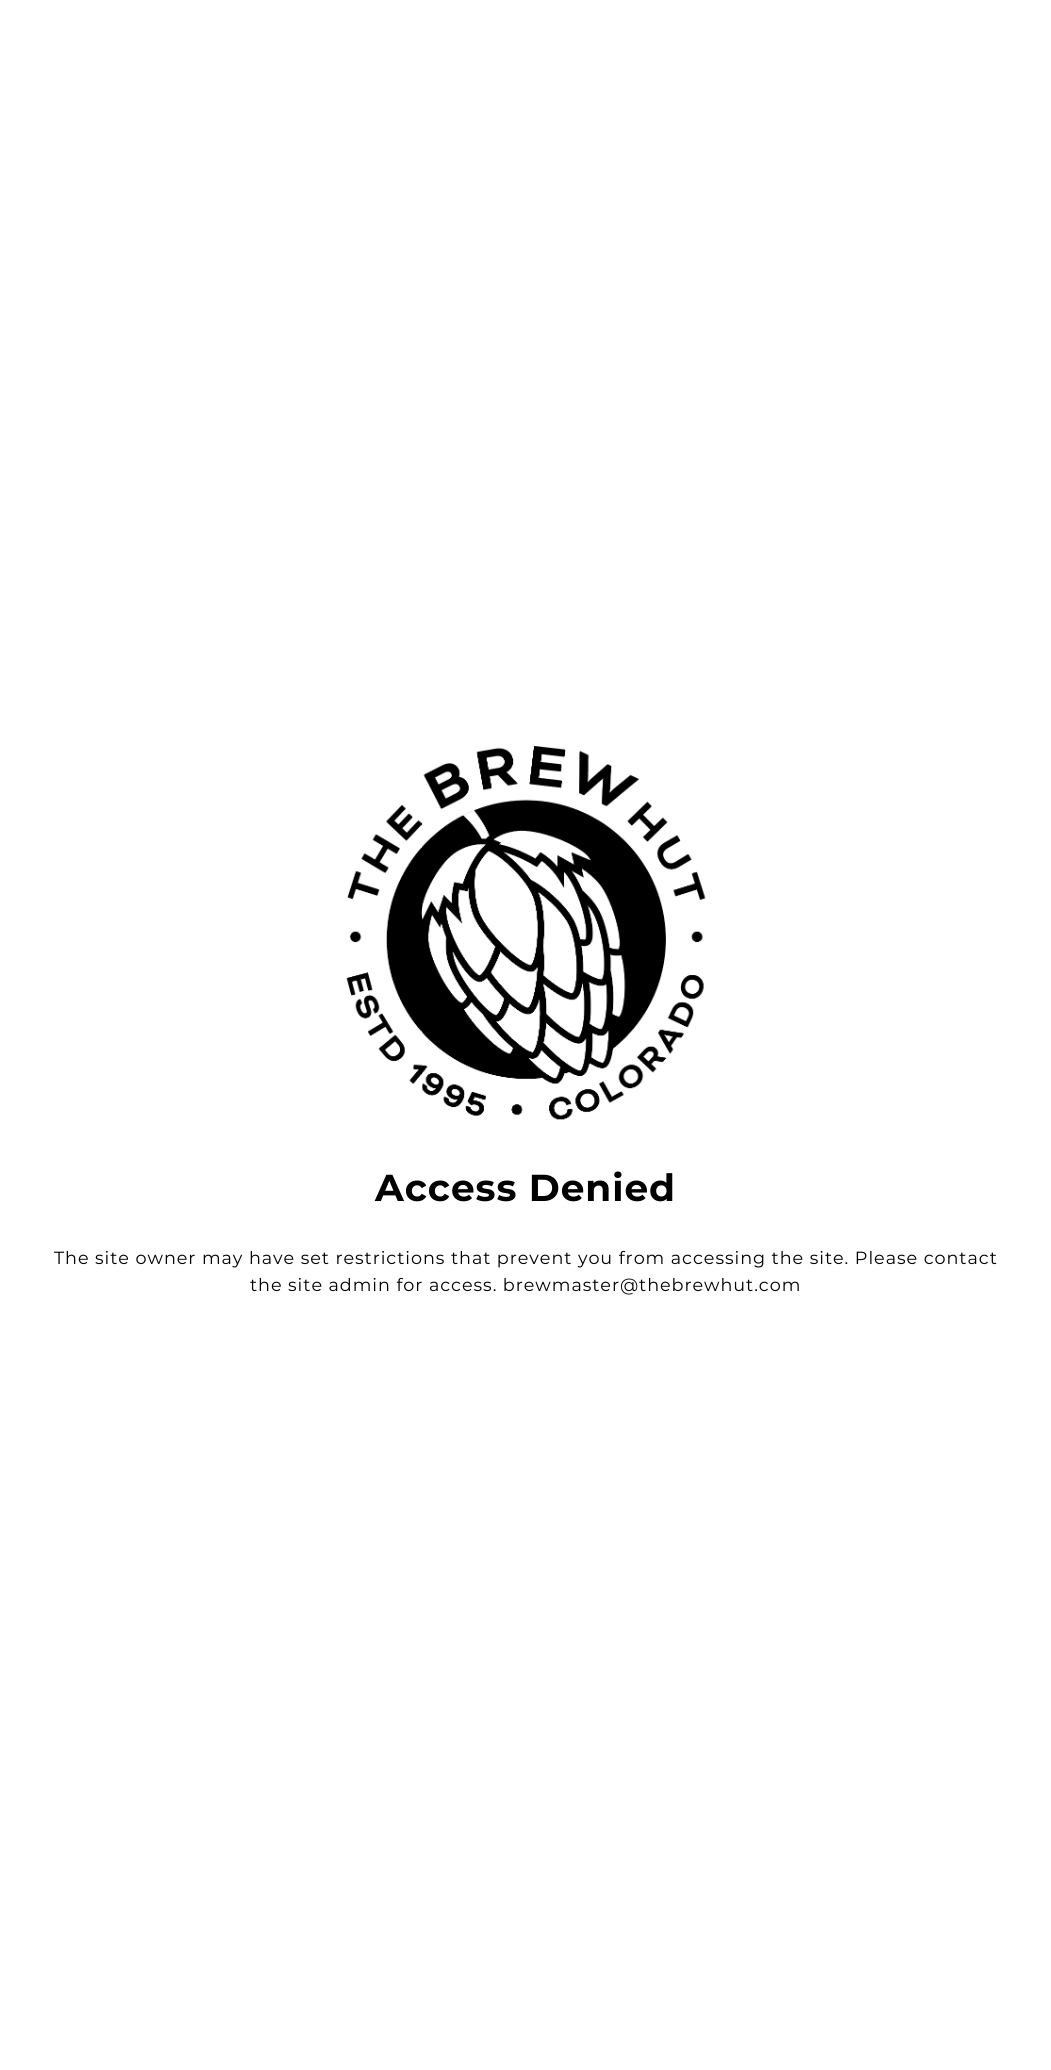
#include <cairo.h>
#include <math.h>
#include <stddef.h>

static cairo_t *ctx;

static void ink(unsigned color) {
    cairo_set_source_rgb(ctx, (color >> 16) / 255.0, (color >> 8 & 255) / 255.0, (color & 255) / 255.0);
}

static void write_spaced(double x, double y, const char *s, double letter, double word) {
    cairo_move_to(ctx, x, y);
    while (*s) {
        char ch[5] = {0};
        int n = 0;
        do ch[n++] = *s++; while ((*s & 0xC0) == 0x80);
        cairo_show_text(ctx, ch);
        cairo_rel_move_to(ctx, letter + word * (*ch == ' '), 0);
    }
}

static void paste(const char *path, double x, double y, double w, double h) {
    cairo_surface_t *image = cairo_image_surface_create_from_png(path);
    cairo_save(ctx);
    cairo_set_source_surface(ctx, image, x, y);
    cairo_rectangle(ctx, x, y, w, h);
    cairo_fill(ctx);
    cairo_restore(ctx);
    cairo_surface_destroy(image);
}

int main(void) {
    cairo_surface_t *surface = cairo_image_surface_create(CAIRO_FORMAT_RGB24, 1051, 2070);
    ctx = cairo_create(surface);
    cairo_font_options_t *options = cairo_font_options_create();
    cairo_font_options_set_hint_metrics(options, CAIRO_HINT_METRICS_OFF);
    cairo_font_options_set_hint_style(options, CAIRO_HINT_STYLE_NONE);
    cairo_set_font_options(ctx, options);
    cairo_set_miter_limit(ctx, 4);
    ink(0xffffff);
    cairo_paint(ctx);
    paste("pic1.png", 346, 746, 360, 374);
    cairo_select_font_face(ctx, "Montserrat", CAIRO_FONT_SLANT_NORMAL, CAIRO_FONT_WEIGHT_BOLD);
    cairo_set_font_size(ctx, 37.5);
    ink(0x000000);
    write_spaced(375, 1201, "Access Denied", 0.95, 0);
    cairo_select_font_face(ctx, "Montserrat", CAIRO_FONT_SLANT_NORMAL, CAIRO_FONT_WEIGHT_NORMAL);
    cairo_set_font_size(ctx, 17.6);
    write_spaced(54, 1264, "The site owner may have set restrictions that prevent you from accessing the site. Please contact", 0.95, 0);
    write_spaced(250, 1291, "the site admin for access. brewmaster@thebrewhut.com", 0.95, 0);
    cairo_surface_write_to_png(surface, "screenshot.png");
    cairo_font_options_destroy(options);
    cairo_destroy(ctx);
    cairo_surface_destroy(surface);
    return 0;
}
